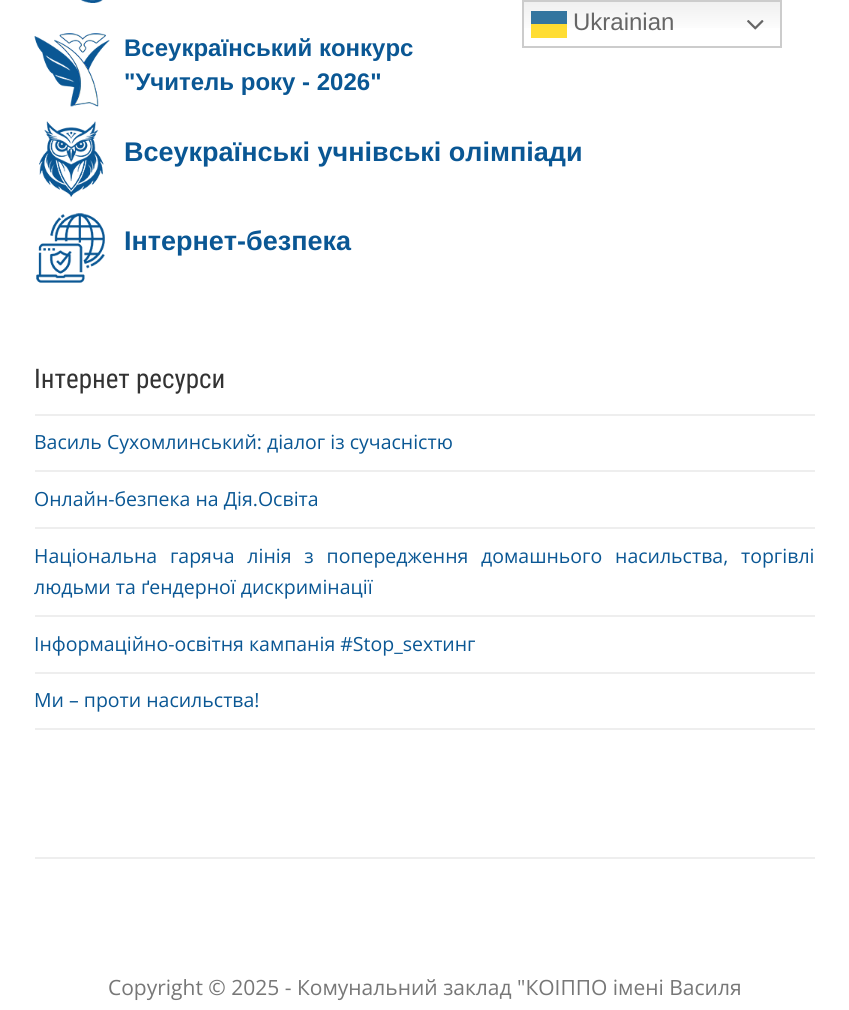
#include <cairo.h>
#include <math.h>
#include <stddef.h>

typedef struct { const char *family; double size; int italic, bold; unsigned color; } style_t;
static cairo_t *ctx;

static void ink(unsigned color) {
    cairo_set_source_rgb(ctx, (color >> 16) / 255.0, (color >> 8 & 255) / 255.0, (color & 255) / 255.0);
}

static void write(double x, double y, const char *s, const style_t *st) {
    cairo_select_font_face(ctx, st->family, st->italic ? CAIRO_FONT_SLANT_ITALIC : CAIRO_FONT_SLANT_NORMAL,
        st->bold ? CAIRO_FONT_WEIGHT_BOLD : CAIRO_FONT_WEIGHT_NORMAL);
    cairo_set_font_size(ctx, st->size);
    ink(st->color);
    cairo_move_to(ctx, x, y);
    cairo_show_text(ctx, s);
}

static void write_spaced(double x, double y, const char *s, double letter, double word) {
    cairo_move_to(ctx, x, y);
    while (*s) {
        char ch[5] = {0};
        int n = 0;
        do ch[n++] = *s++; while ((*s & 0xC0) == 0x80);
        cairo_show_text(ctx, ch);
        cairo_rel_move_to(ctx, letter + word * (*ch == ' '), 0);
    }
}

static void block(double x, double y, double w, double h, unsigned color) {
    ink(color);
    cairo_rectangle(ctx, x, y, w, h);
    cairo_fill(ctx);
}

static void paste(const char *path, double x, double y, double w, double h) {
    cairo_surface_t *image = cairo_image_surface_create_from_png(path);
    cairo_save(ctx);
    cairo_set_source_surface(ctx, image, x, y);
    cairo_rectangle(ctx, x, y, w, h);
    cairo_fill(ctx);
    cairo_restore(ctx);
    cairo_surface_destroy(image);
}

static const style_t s1 = {"Liberation Sans", 24, 0, 0, 0x666666};
static const style_t s2 = {"Liberation Sans", 24, 0, 1, 0x0a5794};
static const style_t s3 = {"Liberation Sans", 27, 0, 1, 0x0a5794};
static const style_t s4 = {"Roboto Condensed", 27, 0, 0, 0x333333};
static const style_t s5 = {"Open Sans", 19.5, 0, 0, 0x0a5794};
static const style_t s6 = {"Open Sans", 21, 0, 0, 0x777777};

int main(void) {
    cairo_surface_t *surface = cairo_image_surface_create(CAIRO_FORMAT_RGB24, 849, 1010);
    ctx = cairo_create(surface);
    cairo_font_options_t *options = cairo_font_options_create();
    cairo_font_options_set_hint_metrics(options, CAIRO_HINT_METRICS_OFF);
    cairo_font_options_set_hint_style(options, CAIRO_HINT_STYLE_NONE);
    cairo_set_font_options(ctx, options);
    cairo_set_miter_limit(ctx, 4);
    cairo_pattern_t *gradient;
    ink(0xffffff);
    cairo_paint(ctx);
    gradient = cairo_pattern_create_linear(652, 0, 652, 48);
    cairo_pattern_add_color_stop_rgba(gradient, 0, 0.937, 0.937, 0.937, 1);
    cairo_pattern_add_color_stop_rgba(gradient, 0.7, 1, 1, 1, 1);
    cairo_set_source(ctx, gradient);
    cairo_pattern_destroy(gradient);
    cairo_rectangle(ctx, 524, 2, 256, 26);
    cairo_fill(ctx);
    gradient = cairo_pattern_create_linear(652, 0, 652, 48);
    cairo_pattern_add_color_stop_rgba(gradient, 0, 0.988, 0.855, 0.188, 1);
    cairo_pattern_add_color_stop_rgba(gradient, 0.7, 1, 0.867, 0.2, 1);
    cairo_set_source(ctx, gradient);
    cairo_pattern_destroy(gradient);
    cairo_rectangle(ctx, 531, 24, 36, 14);
    cairo_fill(ctx);
    cairo_rectangle(ctx, 523, 1, 258, 46);
    ink(0xcccccc);
    cairo_stroke(ctx);
    block(531, 11, 36, 13, 0x33759f);
    write(573, 30, "Ukrainian", &s1);
    paste("pic1.png", 747, 20, 17, 10);
    paste("pic2.png", 81, 0, 22, 3);
    paste("pic3.png", 34, 33, 76, 74);
    write(124, 56, "Всеукраїнський конкурс", &s2);
    write(124, 90, "\"Учитель року - 2026\"", &s2);
    paste("pic4.png", 39, 121, 65, 76);
    write(124, 161, "Всеукраїнські учнівські олімпіади", &s3);
    paste("pic5.png", 36, 213, 69, 70);
    write(124, 250, "Інтернет-безпека", &s3);
    block(35, 414, 780, 2, 0xeeeeee);
    write(34, 388, "Інтернет ресурси", &s4);
    block(35, 470, 780, 2, 0xeeeeee);
    write(34, 449, "Василь Сухомлинський: діалог із сучасністю", &s5);
    block(35, 527, 780, 2, 0xeeeeee);
    write(34, 506, "Онлайн-безпека на Дія.Освіта", &s5);
    block(35, 615, 780, 2, 0xeeeeee);
    ink(0x0a5794);
    write_spaced(34, 563, "Національна гаряча лінія з попередження домашнього насильства, торгівлі", 0, 7.75);
    write(34, 594, "людьми та ґендерної дискримінації", &s5);
    block(35, 672, 780, 2, 0xeeeeee);
    write(34, 651, "Інформаційно-освітня кампанія #Stop_sexтинг", &s5);
    block(35, 728, 780, 2, 0xeeeeee);
    write(34, 707, "Ми – проти насильства!", &s5);
    block(35, 857, 780, 2, 0xeeeeee);
    write(108, 995, "Copyright © 2025 - Комунальний заклад \"КОІППО імені Василя", &s6);
    cairo_surface_write_to_png(surface, "screenshot.png");
    cairo_font_options_destroy(options);
    cairo_destroy(ctx);
    cairo_surface_destroy(surface);
    return 0;
}
